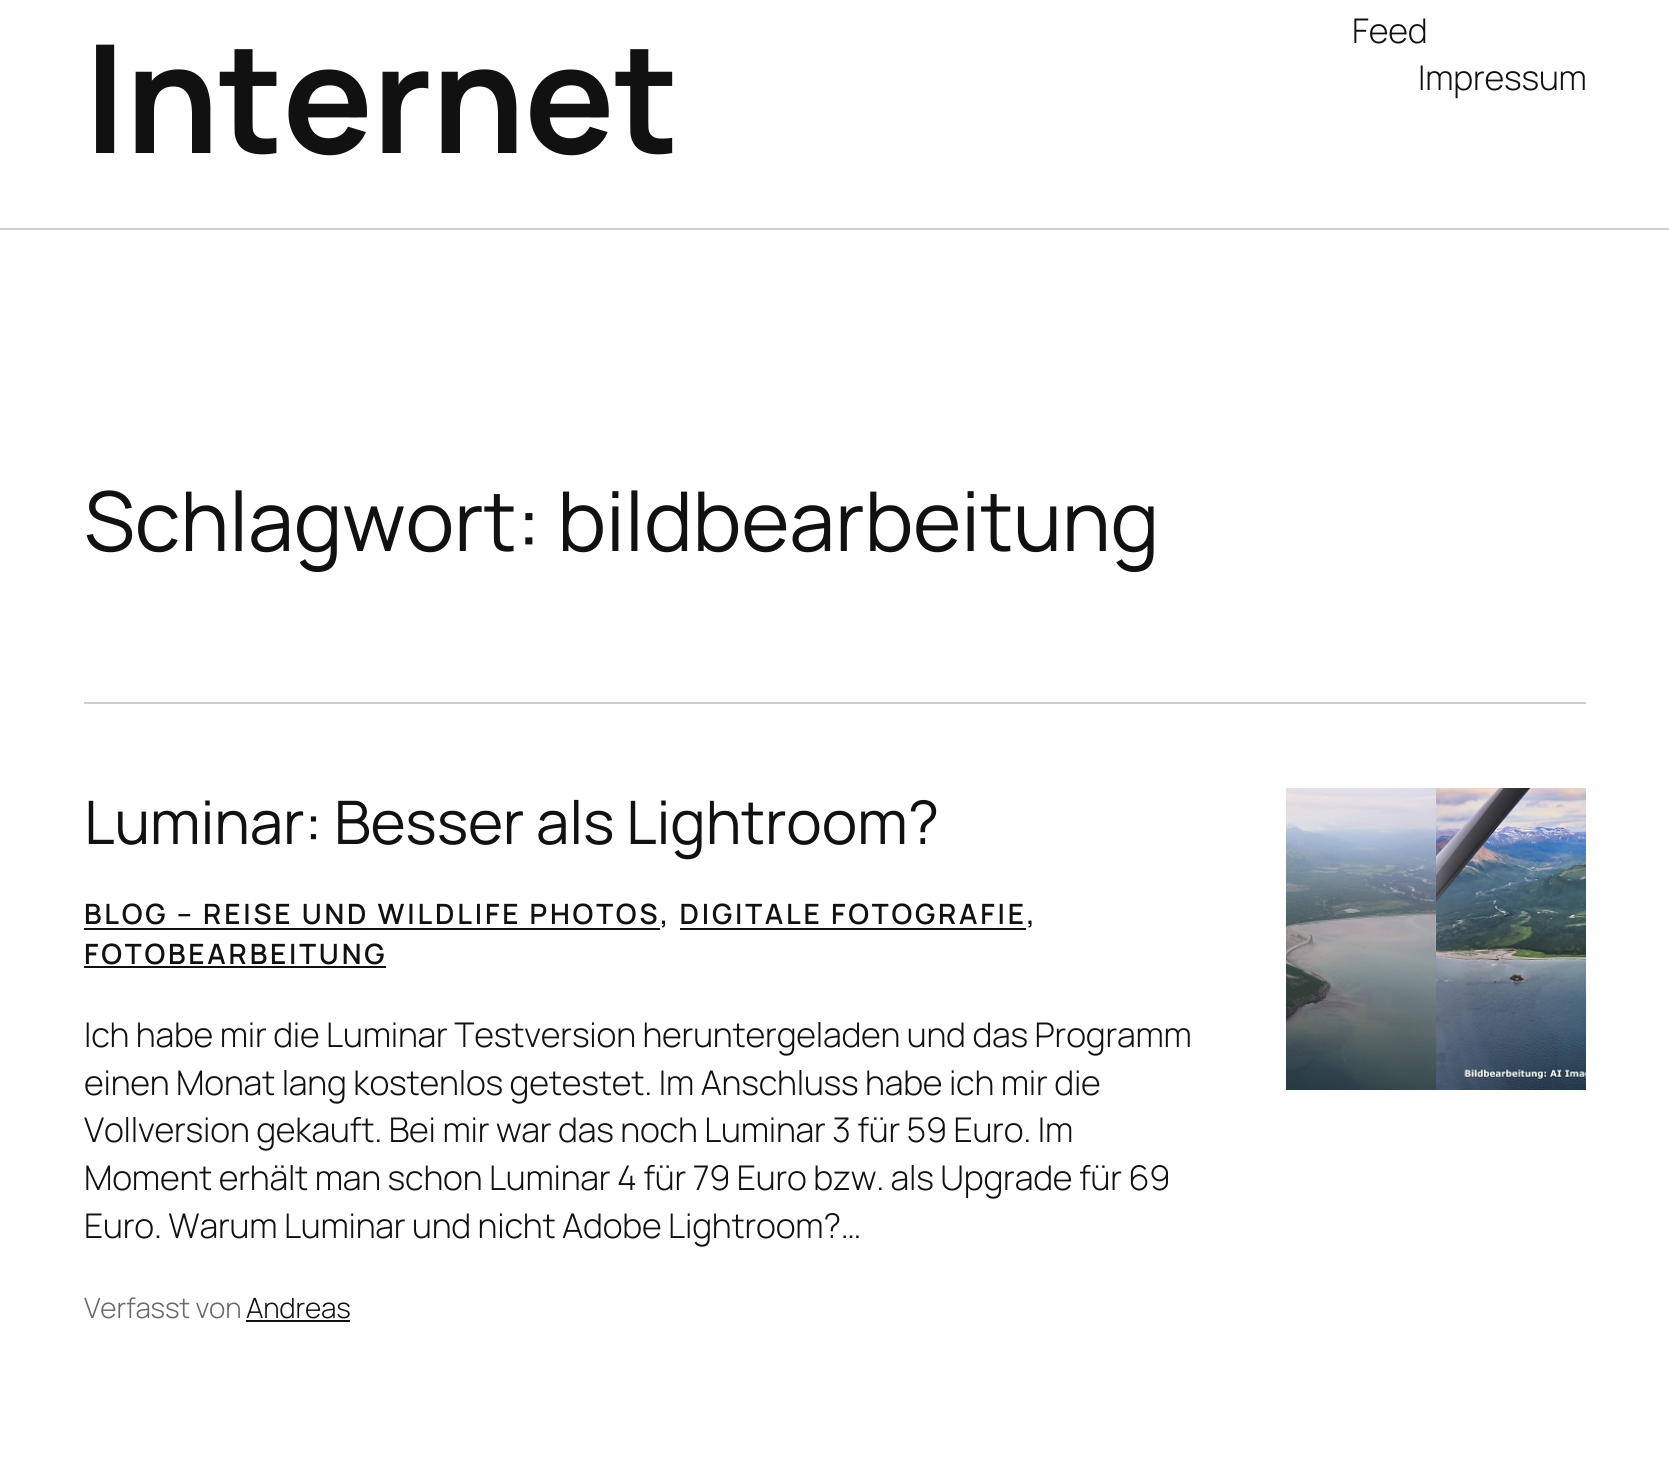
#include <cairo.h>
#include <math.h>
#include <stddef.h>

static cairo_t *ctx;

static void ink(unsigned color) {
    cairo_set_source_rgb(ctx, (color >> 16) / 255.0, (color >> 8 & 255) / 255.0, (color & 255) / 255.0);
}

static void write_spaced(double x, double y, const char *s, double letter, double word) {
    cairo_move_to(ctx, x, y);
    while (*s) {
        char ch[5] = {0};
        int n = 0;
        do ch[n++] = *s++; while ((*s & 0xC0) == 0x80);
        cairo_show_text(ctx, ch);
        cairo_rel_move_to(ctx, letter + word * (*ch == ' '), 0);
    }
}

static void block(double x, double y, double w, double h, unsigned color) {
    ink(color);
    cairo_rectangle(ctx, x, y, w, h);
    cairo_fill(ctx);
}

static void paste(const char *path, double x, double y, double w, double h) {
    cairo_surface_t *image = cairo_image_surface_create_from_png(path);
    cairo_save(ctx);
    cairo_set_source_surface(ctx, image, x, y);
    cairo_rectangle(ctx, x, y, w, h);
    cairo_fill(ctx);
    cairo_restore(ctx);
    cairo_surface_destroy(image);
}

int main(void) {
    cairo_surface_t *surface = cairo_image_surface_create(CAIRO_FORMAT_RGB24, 1669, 1457);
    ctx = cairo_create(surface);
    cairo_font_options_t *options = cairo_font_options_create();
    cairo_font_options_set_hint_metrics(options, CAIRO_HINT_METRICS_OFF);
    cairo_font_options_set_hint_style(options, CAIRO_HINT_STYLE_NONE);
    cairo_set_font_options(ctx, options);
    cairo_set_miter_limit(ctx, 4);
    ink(0xffffff);
    cairo_paint(ctx);
    block(0, 228, 1669, 2, 0xcfcfcf);
    cairo_select_font_face(ctx, "Manrope", CAIRO_FONT_SLANT_NORMAL, CAIRO_FONT_WEIGHT_BOLD);
    cairo_set_font_size(ctx, 150.5);
    ink(0x111111);
    write_spaced(84, 153, "Internet", -1, 0);
    cairo_select_font_face(ctx, "Manrope Light", CAIRO_FONT_SLANT_NORMAL, CAIRO_FONT_WEIGHT_NORMAL);
    cairo_set_font_size(ctx, 34);
    write_spaced(1352, 43, "Feed", -0.2, 0);
    write_spaced(1418, 90, "Impressum", -0.2, 0);
    cairo_select_font_face(ctx, "Manrope", CAIRO_FONT_SLANT_NORMAL, CAIRO_FONT_WEIGHT_NORMAL);
    cairo_set_font_size(ctx, 82.5);
    write_spaced(84, 551, "Schlagwort: bildbearbeitung", -0.2, 0);
    block(84, 702, 1502, 2, 0xcfcfcf);
    cairo_set_font_size(ctx, 60);
    ink(0x111111);
    write_spaced(84, 844, "Luminar: Besser als Lightroom?", -0.2, 0);
    cairo_select_font_face(ctx, "Manrope SemiBold", CAIRO_FONT_SLANT_NORMAL, CAIRO_FONT_WEIGHT_NORMAL);
    cairo_set_font_size(ctx, 28);
    write_spaced(84, 924, "BLOG – REISE UND WILDLIFE PHOTOS, DIGITALE FOTOGRAFIE,", 2.8, 0);
    block(84, 928, 576, 2, 0x111111);
    block(680, 928, 346, 2, 0x111111);
    write_spaced(84, 964, "FOTOBEARBEITUNG", 2.8, 0);
    block(84, 966, 302, 2, 0x111111);
    cairo_select_font_face(ctx, "Manrope Light", CAIRO_FONT_SLANT_NORMAL, CAIRO_FONT_WEIGHT_NORMAL);
    cairo_set_font_size(ctx, 34);
    write_spaced(84, 1047, "Ich habe mir die Luminar Testversion heruntergeladen und das Programm", -0.2, 0);
    write_spaced(84, 1095, "einen Monat lang kostenlos getestet. Im Anschluss habe ich mir die", -0.2, 0);
    write_spaced(84, 1142, "Vollversion gekauft. Bei mir war das noch Luminar 3 für 59 Euro. Im", -0.2, 0);
    write_spaced(84, 1190, "Moment erhält man schon Luminar 4 für 79 Euro bzw. als Upgrade für 69", -0.2, 0);
    write_spaced(84, 1238, "Euro. Warum Luminar und nicht Adobe Lightroom?…", -0.2, 0);
    cairo_set_font_size(ctx, 28);
    ink(0x686868);
    write_spaced(84, 1318, "Verfasst von", -0.2, 0);
    ink(0x111111);
    write_spaced(246, 1318, "Andreas", -0.2, 0);
    block(246, 1320, 104, 2, 0x111111);
    paste("pic1.png", 1286, 788, 300, 302);
    cairo_surface_write_to_png(surface, "screenshot.png");
    cairo_font_options_destroy(options);
    cairo_destroy(ctx);
    cairo_surface_destroy(surface);
    return 0;
}
